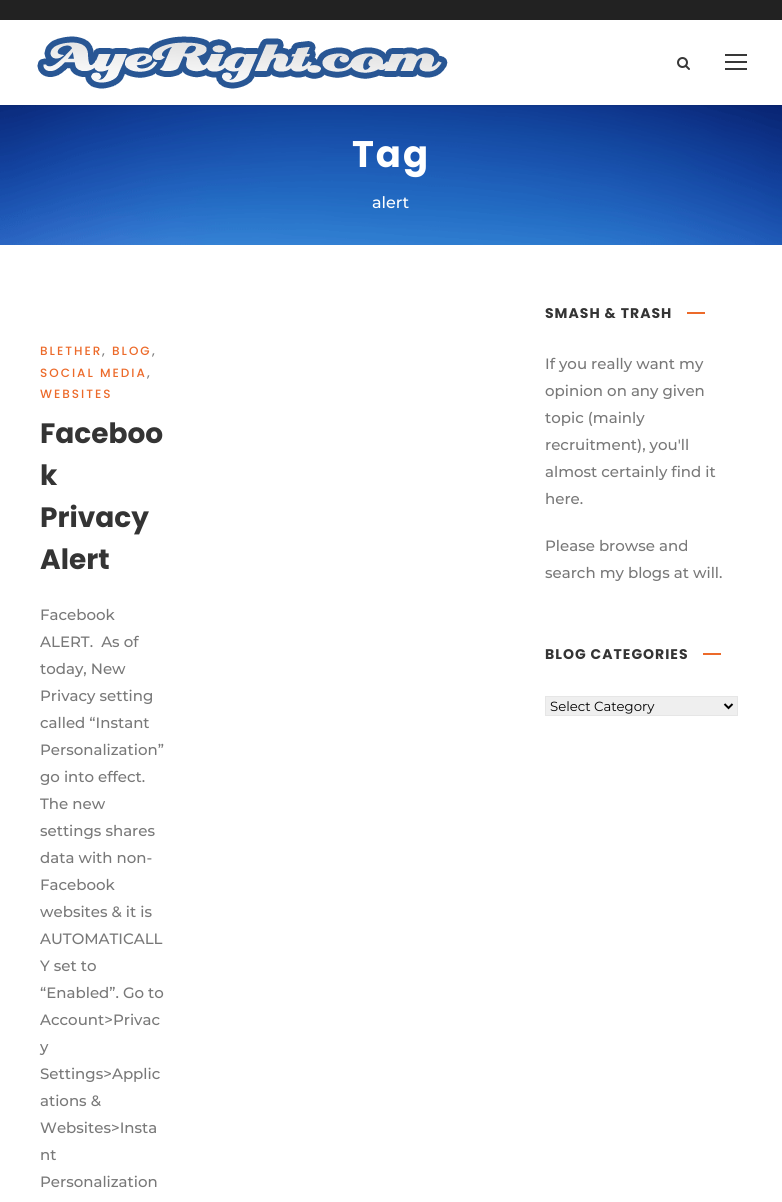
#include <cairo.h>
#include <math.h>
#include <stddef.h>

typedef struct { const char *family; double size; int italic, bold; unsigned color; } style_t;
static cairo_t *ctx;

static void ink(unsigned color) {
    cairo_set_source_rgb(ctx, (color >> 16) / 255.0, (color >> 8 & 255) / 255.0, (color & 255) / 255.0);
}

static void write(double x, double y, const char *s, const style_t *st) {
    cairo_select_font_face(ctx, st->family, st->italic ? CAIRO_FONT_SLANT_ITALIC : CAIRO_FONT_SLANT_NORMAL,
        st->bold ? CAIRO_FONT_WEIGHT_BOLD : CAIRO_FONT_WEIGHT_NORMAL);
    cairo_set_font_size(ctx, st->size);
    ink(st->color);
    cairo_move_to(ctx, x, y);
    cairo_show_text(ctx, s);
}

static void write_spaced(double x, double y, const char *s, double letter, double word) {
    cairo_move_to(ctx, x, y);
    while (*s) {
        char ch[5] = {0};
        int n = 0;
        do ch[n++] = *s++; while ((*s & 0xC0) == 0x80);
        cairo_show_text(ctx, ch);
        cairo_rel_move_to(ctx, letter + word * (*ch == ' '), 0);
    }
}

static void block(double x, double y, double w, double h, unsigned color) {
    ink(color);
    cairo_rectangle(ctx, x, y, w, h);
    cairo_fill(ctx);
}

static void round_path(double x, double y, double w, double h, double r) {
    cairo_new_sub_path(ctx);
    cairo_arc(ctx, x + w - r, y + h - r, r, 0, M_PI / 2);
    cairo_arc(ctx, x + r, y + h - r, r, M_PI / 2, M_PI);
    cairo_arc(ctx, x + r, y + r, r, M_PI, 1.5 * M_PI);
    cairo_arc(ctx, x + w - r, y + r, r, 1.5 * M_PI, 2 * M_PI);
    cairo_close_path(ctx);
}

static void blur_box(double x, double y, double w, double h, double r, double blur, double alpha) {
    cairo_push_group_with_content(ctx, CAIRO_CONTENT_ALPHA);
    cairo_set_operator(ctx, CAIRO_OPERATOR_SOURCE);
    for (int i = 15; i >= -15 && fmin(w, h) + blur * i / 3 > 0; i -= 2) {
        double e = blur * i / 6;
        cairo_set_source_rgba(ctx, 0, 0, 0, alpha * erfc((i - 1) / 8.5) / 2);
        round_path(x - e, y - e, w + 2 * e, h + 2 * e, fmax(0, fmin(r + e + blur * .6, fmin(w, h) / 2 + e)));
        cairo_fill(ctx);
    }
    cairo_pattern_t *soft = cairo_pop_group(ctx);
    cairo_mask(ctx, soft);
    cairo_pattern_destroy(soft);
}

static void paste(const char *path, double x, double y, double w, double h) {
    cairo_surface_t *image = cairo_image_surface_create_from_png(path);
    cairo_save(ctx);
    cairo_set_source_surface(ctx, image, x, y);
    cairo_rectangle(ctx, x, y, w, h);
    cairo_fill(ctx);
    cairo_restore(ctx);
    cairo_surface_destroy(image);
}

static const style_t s1 = {"Montserrat Medium", 16, 0, 0, 0xffffff};
static const style_t s2 = {"Poppins", 28, 0, 1, 0x343434};
static const style_t s3 = {"Montserrat Medium", 15, 0, 0, 0x787878};
static const style_t s4 = {"Montserrat Thin", 13.25, 0, 0, 0x000000};

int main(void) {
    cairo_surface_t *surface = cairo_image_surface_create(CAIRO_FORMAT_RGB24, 782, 1202);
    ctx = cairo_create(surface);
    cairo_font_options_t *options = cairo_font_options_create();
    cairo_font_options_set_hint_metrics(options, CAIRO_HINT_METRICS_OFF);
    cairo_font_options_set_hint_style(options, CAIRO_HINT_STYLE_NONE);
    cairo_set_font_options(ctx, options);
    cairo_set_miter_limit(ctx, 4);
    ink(0xffffff);
    cairo_paint(ctx);
    block(0, 0, 782, 20, 0x222222);
    paste("pic3.png", 0, 105, 782, 140);
    cairo_save(ctx);
    cairo_rectangle(ctx, 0, 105, 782, 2);
    cairo_clip(ctx);
    ink(0x000000);
    blur_box(0, 21, 782, 85, 0, 1, 0.1);
    cairo_restore(ctx);
    paste("pic1.png", 37, 36, 411, 53);
    paste("pic2.png", 677, 57, 13, 13);
    block(725, 54, 22, 2, 0x383838);
    block(725, 61, 22, 2, 0x383838);
    block(725, 68, 22, 2, 0x383838);
    cairo_select_font_face(ctx, "Poppins", CAIRO_FONT_SLANT_NORMAL, CAIRO_FONT_WEIGHT_BOLD);
    cairo_set_font_size(ctx, 37);
    ink(0xffffff);
    write_spaced(352, 167, "Tag", 2, 0);
    write(372, 208, "alert", &s1);
    cairo_select_font_face(ctx, "Poppins Medium", CAIRO_FONT_SLANT_NORMAL, CAIRO_FONT_WEIGHT_NORMAL);
    cairo_set_font_size(ctx, 12);
    ink(0xec6a2a);
    write_spaced(40, 355, "BLETHER", 2, 0);
    ink(0x787878);
    write_spaced(102, 355, ",", 2, 0);
    ink(0xec6a2a);
    write_spaced(112, 355, "BLOG", 2, 0);
    ink(0x787878);
    write_spaced(152, 355, ",", 2, 0);
    ink(0xec6a2a);
    write_spaced(40, 377, "SOCIAL MEDIA", 2, 0);
    ink(0x787878);
    write_spaced(147, 377, ",", 2, 0);
    ink(0xec6a2a);
    write_spaced(40, 398, "WEBSITES", 2, 0);
    write(40, 443, "Faceboo", &s2);
    write(40, 485, "k", &s2);
    write(40, 527, "Privacy", &s2);
    write(40, 569, "Alert", &s2);
    write(40, 620, "Facebook", &s3);
    write(40, 647, "ALERT.  As of", &s3);
    write(40, 674, "today, New", &s3);
    write(40, 701, "Privacy setting", &s3);
    write(40, 728, "called “Instant", &s3);
    write(40, 755, "Personalization”", &s3);
    write(40, 782, "go into effect.", &s3);
    write(40, 809, "The new", &s3);
    write(40, 836, "settings shares", &s3);
    write(40, 863, "data with non-", &s3);
    write(40, 890, "Facebook", &s3);
    write(40, 917, "websites & it is", &s3);
    write(40, 944, "AUTOMATICALL", &s3);
    write(40, 971, "Y set to", &s3);
    write(40, 998, "“Enabled”. Go to", &s3);
    write(40, 1025, "Account>Privac", &s3);
    write(40, 1052, "y", &s3);
    write(40, 1079, "Settings>Applic", &s3);
    write(40, 1106, "ations &", &s3);
    write(40, 1133, "Websites>Insta", &s3);
    write(40, 1160, "nt", &s3);
    write(40, 1187, "Personalization", &s3);
    cairo_select_font_face(ctx, "Poppins", CAIRO_FONT_SLANT_NORMAL, CAIRO_FONT_WEIGHT_BOLD);
    cairo_set_font_size(ctx, 14);
    ink(0x343434);
    write_spaced(545, 318, "SMASH & TRASH", 1, 0);
    block(687, 312, 18, 2, 0xec6a2a);
    write(545, 369, "If you really want my", &s3);
    write(545, 396, "opinion on any given", &s3);
    write(545, 423, "topic (mainly", &s3);
    write(545, 450, "recruitment), you'll", &s3);
    write(545, 477, "almost certainly find it", &s3);
    write(545, 504, "here.", &s3);
    write(545, 551, "Please browse and", &s3);
    write(545, 578, "search my blogs at will.", &s3);
    cairo_select_font_face(ctx, "Poppins", CAIRO_FONT_SLANT_NORMAL, CAIRO_FONT_WEIGHT_BOLD);
    cairo_set_font_size(ctx, 14);
    ink(0x343434);
    write_spaced(545, 659, "BLOG CATEGORIES", 1, 0);
    block(703, 653, 18, 2, 0xec6a2a);
    ink(0xefefef);
    cairo_rectangle(ctx, 545.5, 696.5, 192, 19);
    cairo_fill_preserve(ctx);
    ink(0xe6e6e6);
    cairo_set_line_width(ctx, 1);
    cairo_stroke(ctx);
    cairo_new_path(ctx);
    cairo_move_to(ctx, 724.5, 704);
    cairo_line_to(ctx, 728.5, 708);
    cairo_line_to(ctx, 732.5, 704);
    ink(0x000000);
    cairo_set_line_width(ctx, 2);
    cairo_stroke(ctx);
    write(550, 711, "Select Category", &s4);
    cairo_surface_write_to_png(surface, "screenshot.png");
    cairo_font_options_destroy(options);
    cairo_destroy(ctx);
    cairo_surface_destroy(surface);
    return 0;
}
